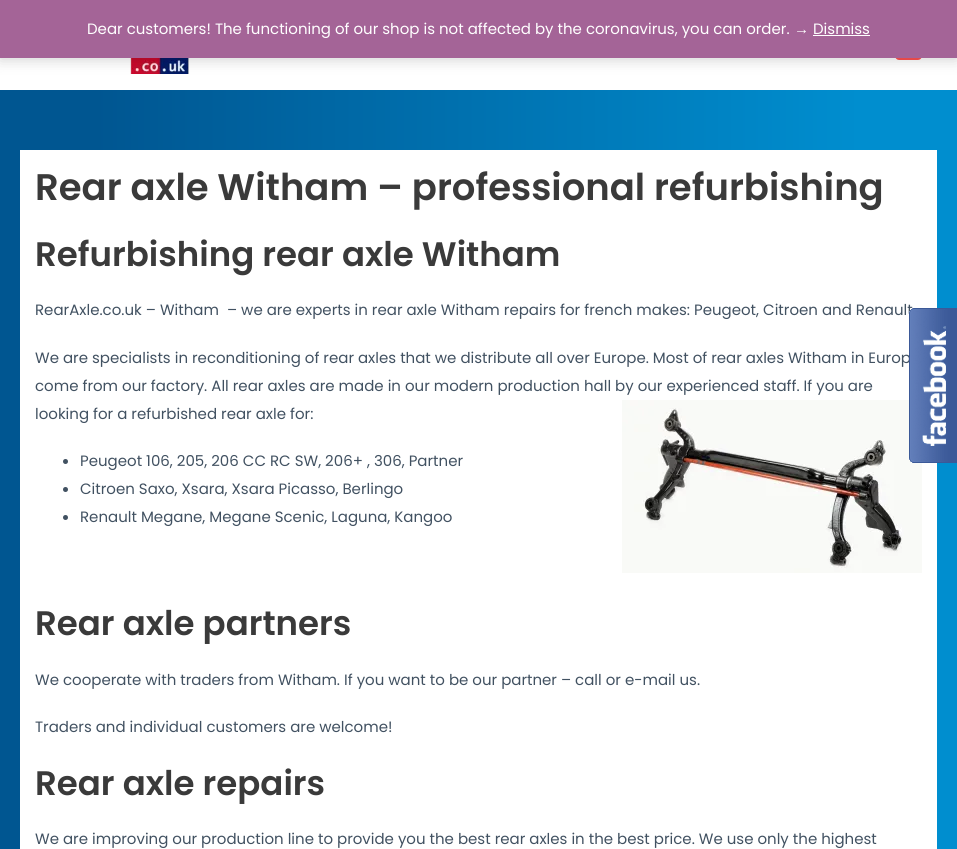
#include <cairo.h>
#include <math.h>
#include <stddef.h>

typedef struct { const char *family; double size; int italic, bold; unsigned color; } style_t;
static cairo_t *ctx;

static void ink(unsigned color) {
    cairo_set_source_rgb(ctx, (color >> 16) / 255.0, (color >> 8 & 255) / 255.0, (color & 255) / 255.0);
}

static void write(double x, double y, const char *s, const style_t *st) {
    cairo_select_font_face(ctx, st->family, st->italic ? CAIRO_FONT_SLANT_ITALIC : CAIRO_FONT_SLANT_NORMAL,
        st->bold ? CAIRO_FONT_WEIGHT_BOLD : CAIRO_FONT_WEIGHT_NORMAL);
    cairo_set_font_size(ctx, st->size);
    ink(st->color);
    cairo_move_to(ctx, x, y);
    cairo_show_text(ctx, s);
}

static void block(double x, double y, double w, double h, unsigned color) {
    ink(color);
    cairo_rectangle(ctx, x, y, w, h);
    cairo_fill(ctx);
}

static void round_path(double x, double y, double w, double h, double r) {
    cairo_new_sub_path(ctx);
    cairo_arc(ctx, x + w - r, y + h - r, r, 0, M_PI / 2);
    cairo_arc(ctx, x + r, y + h - r, r, M_PI / 2, M_PI);
    cairo_arc(ctx, x + r, y + r, r, M_PI, 1.5 * M_PI);
    cairo_arc(ctx, x + w - r, y + r, r, 1.5 * M_PI, 2 * M_PI);
    cairo_close_path(ctx);
}

static void blur_box(double x, double y, double w, double h, double r, double blur, double alpha) {
    cairo_push_group_with_content(ctx, CAIRO_CONTENT_ALPHA);
    cairo_set_operator(ctx, CAIRO_OPERATOR_SOURCE);
    for (int i = 15; i >= -15 && fmin(w, h) + blur * i / 3 > 0; i -= 2) {
        double e = blur * i / 6;
        cairo_set_source_rgba(ctx, 0, 0, 0, alpha * erfc((i - 1) / 8.5) / 2);
        round_path(x - e, y - e, w + 2 * e, h + 2 * e, fmax(0, fmin(r + e + blur * .6, fmin(w, h) / 2 + e)));
        cairo_fill(ctx);
    }
    cairo_pattern_t *soft = cairo_pop_group(ctx);
    cairo_mask(ctx, soft);
    cairo_pattern_destroy(soft);
}

static void paste(const char *path, double x, double y, double w, double h) {
    cairo_surface_t *image = cairo_image_surface_create_from_png(path);
    cairo_save(ctx);
    cairo_set_source_surface(ctx, image, x, y);
    cairo_rectangle(ctx, x, y, w, h);
    cairo_fill(ctx);
    cairo_restore(ctx);
    cairo_surface_destroy(image);
}

static const style_t s1 = {"Poppins", 15, 0, 0, 0xffffff};
static const style_t s2 = {"Liberation Sans", 15, 0, 0, 0xffffff};
static const style_t s3 = {"Poppins SemiBold", 37, 0, 0, 0x3a3a3a};
static const style_t s4 = {"Poppins SemiBold", 34, 0, 0, 0x3a3a3a};
static const style_t s5 = {"Poppins", 15, 0, 0, 0x415161};

int main(void) {
    cairo_surface_t *surface = cairo_image_surface_create(CAIRO_FORMAT_RGB24, 957, 849);
    ctx = cairo_create(surface);
    cairo_font_options_t *options = cairo_font_options_create();
    cairo_font_options_set_hint_metrics(options, CAIRO_HINT_METRICS_OFF);
    cairo_font_options_set_hint_style(options, CAIRO_HINT_STYLE_NONE);
    cairo_set_font_options(ctx, options);
    cairo_set_miter_limit(ctx, 4);
    cairo_pattern_t *gradient;
    ink(0xffffff);
    cairo_paint(ctx);
    gradient = cairo_pattern_create_linear(0, 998, 957, 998);
    cairo_pattern_add_color_stop_rgba(gradient, 0.1, 0, 0.337, 0.569, 1);
    cairo_pattern_add_color_stop_rgba(gradient, 0.9, 0, 0.557, 0.812, 1);
    cairo_set_source(ctx, gradient);
    cairo_pattern_destroy(gradient);
    cairo_rectangle(ctx, 0, 90, 957, 759);
    cairo_fill(ctx);
    cairo_new_path(ctx);
    cairo_move_to(ctx, 896, 33);
    cairo_line_to(ctx, 921, 33);
    cairo_line_to(ctx, 921, 56);
    cairo_curve_to(ctx, 921, 57.5, 919.5, 59, 918, 59);
    cairo_line_to(ctx, 899, 59);
    cairo_curve_to(ctx, 897.5, 59, 896, 57.5, 896, 56);
    cairo_close_path(ctx);
    ink(0xff5151);
    cairo_stroke(ctx);
    paste("pic1.png", 130, 58, 59, 16);
    ink(0x000000);
    blur_box(0, 1, 957, 58, 0, 7.5, 0.2);
    block(0, 0, 957, 58, 0xa46497);
    write(87, 34, "Dear customers! The functioning of our shop is not affected by the coronavirus, you can order.", &s1);
    write(794, 34, "→", &s2);
    write(813, 34, "Dismiss", &s1);
    block(813, 35, 57, 1, 0xffffff);
    block(20, 150, 917, 699, 0xffffff);
    write(35, 200, "Rear axle Witham – professional refurbishing", &s3);
    write(35, 266, "Refurbishing rear axle Witham", &s4);
    write(35, 315, "RearAxle.co.uk – Witham  – we are experts in rear axle Witham repairs for french makes: Peugeot, Citroen and Renault", &s5);
    write(35, 363, "We are specialists in reconditioning of rear axles that we distribute all over Europe. Most of rear axles Witham in Europ", &s5);
    write(35, 391, "come from our factory. All rear axles are made in our modern production hall by our experienced staff. If you are", &s5);
    write(35, 419, "looking for a refurbished rear axle for:", &s5);
    paste("pic2.png", 622, 400, 300, 173);
    cairo_arc(ctx, 65.5, 461.5, 2.5, 0, 2 * M_PI);
    cairo_fill(ctx);
    write(80, 466, "Peugeot 106, 205, 206 CC RC SW, 206+ , 306, Partner", &s5);
    cairo_new_path(ctx);
    cairo_arc(ctx, 65.5, 489.5, 2.5, 0, 2 * M_PI);
    cairo_fill(ctx);
    write(80, 494, "Citroen Saxo, Xsara, Xsara Picasso, Berlingo", &s5);
    cairo_new_path(ctx);
    cairo_arc(ctx, 65.5, 517.5, 2.5, 0, 2 * M_PI);
    cairo_fill(ctx);
    write(80, 522, "Renault Megane, Megane Scenic, Laguna, Kangoo", &s5);
    write(35, 635, "Rear axle partners", &s4);
    write(35, 685, "We cooperate with traders from Witham. If you want to be our partner – call or e-mail us.", &s5);
    write(35, 732, "Traders and individual customers are welcome!", &s5);
    write(35, 795, "Rear axle repairs", &s4);
    write(35, 844, "We are improving our production line to provide you the best rear axles in the best price. We use only the highest", &s5);
    paste("pic3.png", 909, 308, 48, 155);
    cairo_surface_write_to_png(surface, "screenshot.png");
    cairo_font_options_destroy(options);
    cairo_destroy(ctx);
    cairo_surface_destroy(surface);
    return 0;
}
